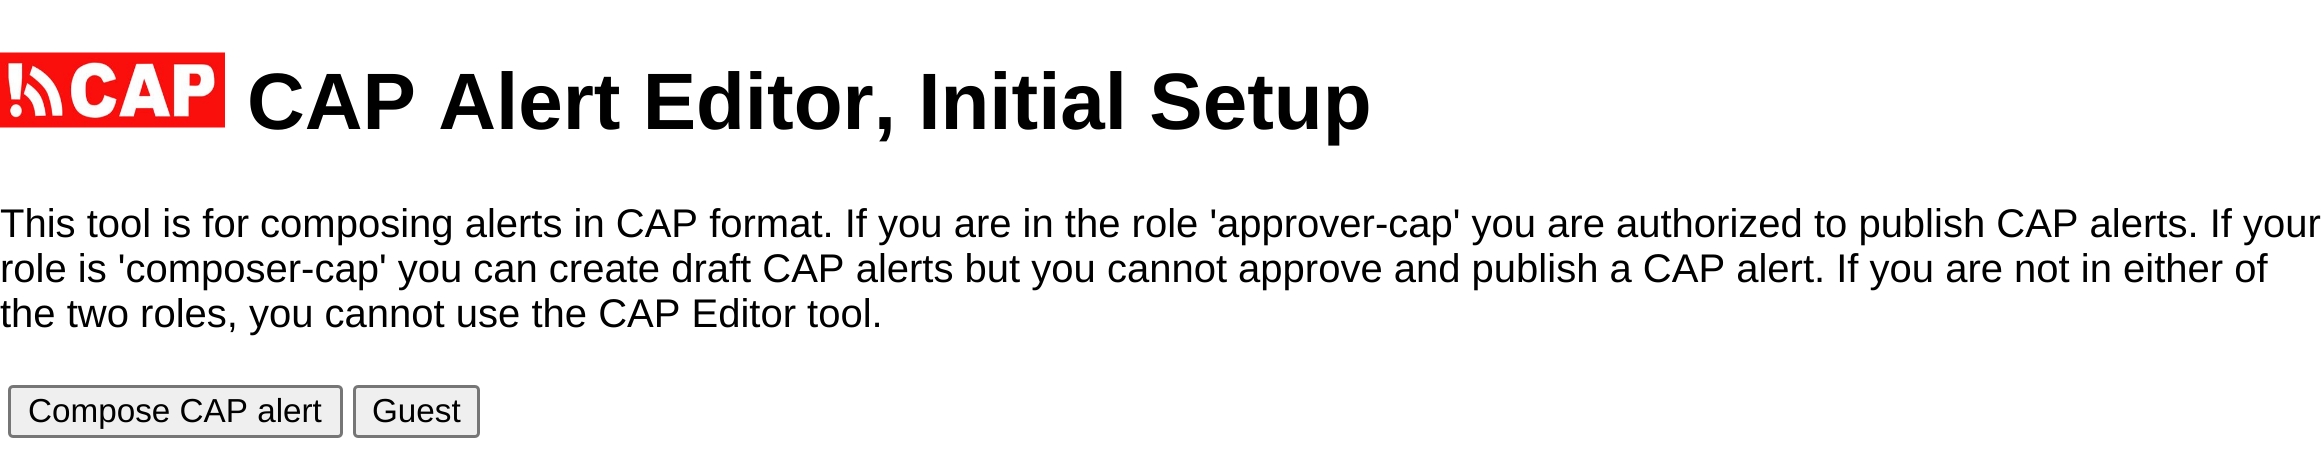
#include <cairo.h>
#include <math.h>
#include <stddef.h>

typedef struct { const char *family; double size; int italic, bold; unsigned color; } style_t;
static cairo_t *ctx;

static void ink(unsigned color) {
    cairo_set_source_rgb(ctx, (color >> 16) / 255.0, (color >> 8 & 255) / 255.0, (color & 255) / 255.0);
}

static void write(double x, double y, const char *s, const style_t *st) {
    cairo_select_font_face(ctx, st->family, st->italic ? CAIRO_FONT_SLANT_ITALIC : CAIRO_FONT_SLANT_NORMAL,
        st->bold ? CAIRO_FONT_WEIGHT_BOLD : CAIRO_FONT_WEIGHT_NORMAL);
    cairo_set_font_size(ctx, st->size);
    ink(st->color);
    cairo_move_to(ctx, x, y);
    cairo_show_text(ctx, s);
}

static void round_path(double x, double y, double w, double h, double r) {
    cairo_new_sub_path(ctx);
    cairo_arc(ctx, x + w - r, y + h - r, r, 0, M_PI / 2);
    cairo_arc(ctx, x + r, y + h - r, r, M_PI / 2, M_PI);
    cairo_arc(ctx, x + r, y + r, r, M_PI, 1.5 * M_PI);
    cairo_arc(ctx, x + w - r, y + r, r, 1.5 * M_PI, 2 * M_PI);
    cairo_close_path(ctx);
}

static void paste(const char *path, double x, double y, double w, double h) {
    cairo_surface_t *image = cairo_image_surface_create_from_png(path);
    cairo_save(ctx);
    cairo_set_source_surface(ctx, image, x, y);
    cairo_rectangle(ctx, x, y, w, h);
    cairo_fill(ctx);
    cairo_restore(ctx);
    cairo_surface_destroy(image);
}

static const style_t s1 = {"Liberation Sans", 80, 0, 1, 0x000000};
static const style_t s2 = {"Liberation Sans", 40, 0, 0, 0x000000};
static const style_t s3 = {"Liberation Sans", 33.25, 0, 0, 0x000000};

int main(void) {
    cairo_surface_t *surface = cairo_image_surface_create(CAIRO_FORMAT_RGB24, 2324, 453);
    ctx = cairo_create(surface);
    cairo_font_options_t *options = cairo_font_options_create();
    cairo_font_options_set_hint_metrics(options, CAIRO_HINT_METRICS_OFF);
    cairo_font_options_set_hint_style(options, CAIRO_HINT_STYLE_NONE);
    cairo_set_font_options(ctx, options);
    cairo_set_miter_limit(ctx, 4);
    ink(0xffffff);
    cairo_paint(ctx);
    paste("pic1.png", 0, 52, 225, 76);
    write(247, 129, "CAP Alert Editor, Initial Setup", &s1);
    write(0, 237, "This tool is for composing alerts in CAP format. If you are in the role 'approver-cap' you are authorized to publish CAP alerts. If your", &s2);
    write(0, 282, "role is 'composer-cap' you can create draft CAP alerts but you cannot approve and publish a CAP alert. If you are not in either of", &s2);
    write(0, 327, "the two roles, you cannot use the CAP Editor tool.", &s2);
    ink(0xefefef);
    round_path(9.5, 386.5, 332, 50, 3.5);
    cairo_fill_preserve(ctx);
    ink(0x767676);
    cairo_set_line_width(ctx, 3);
    cairo_stroke(ctx);
    write(28, 422, "Compose CAP alert", &s3);
    ink(0xefefef);
    round_path(354.5, 386.5, 124, 50, 3.5);
    cairo_fill_preserve(ctx);
    ink(0x767676);
    cairo_stroke(ctx);
    write(372, 422, "Guest", &s3);
    cairo_surface_write_to_png(surface, "screenshot.png");
    cairo_font_options_destroy(options);
    cairo_destroy(ctx);
    cairo_surface_destroy(surface);
    return 0;
}
